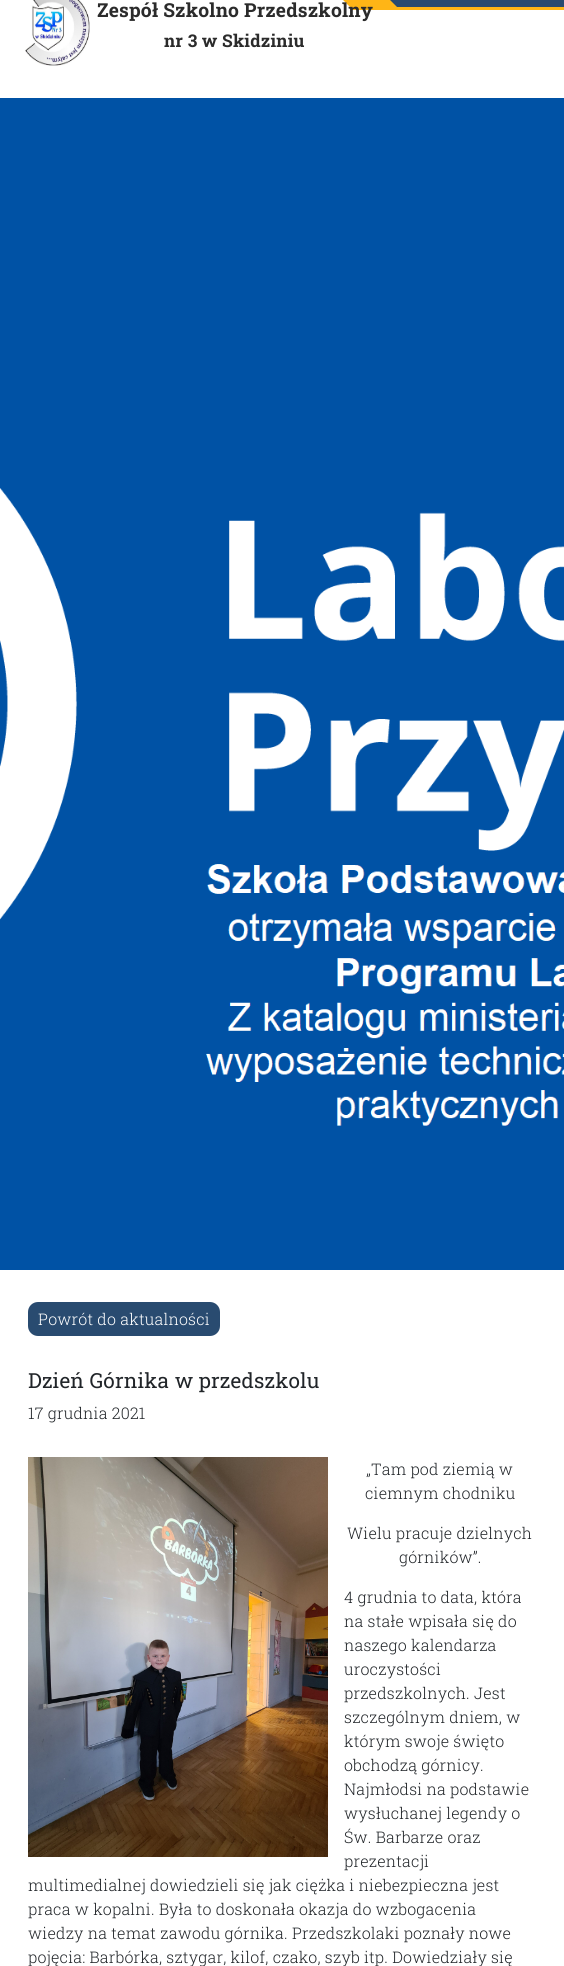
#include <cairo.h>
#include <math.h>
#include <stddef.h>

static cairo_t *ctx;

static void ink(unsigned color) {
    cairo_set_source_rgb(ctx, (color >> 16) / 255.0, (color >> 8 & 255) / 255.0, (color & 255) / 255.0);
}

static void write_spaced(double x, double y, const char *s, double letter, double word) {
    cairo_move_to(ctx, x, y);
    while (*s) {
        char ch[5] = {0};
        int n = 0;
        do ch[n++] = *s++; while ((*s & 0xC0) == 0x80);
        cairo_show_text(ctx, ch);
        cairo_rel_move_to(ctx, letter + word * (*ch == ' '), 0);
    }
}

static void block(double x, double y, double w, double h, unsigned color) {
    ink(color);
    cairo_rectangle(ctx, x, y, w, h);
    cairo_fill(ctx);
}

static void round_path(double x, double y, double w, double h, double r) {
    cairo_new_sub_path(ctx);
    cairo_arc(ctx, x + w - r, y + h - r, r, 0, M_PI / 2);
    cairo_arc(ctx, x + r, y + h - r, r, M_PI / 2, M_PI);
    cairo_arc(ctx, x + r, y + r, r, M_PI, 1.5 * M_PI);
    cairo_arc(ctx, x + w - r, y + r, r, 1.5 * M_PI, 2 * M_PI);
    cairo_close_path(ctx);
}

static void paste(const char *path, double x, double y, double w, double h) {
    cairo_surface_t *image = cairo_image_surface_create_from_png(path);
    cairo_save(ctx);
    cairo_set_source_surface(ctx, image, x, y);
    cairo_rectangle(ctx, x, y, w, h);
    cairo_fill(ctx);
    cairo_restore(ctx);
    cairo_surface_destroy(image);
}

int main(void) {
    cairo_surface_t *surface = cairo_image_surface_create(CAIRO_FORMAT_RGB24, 564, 1966);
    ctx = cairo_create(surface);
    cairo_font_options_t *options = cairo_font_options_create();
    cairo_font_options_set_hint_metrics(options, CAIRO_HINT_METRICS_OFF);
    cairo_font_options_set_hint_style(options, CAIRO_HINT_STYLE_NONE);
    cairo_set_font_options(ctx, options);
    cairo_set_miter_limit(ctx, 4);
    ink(0xffffff);
    cairo_paint(ctx);
    block(390, 0, 174, 7, 0x294a70);
    block(397, 7, 167, 3, 0xffb516);
    cairo_new_path(ctx);
    cairo_move_to(ctx, 400, 10);
    cairo_line_to(ctx, 0, 10);
    cairo_line_to(ctx, 0, -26);
    cairo_line_to(ctx, 364, -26);
    cairo_close_path(ctx);
    cairo_fill(ctx);
    ink(0xffffff);
    cairo_new_path(ctx);
    cairo_move_to(ctx, 362, 19);
    cairo_line_to(ctx, 0, 19);
    cairo_line_to(ctx, 0, -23);
    cairo_line_to(ctx, 320, -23);
    cairo_close_path(ctx);
    cairo_fill(ctx);
    paste("pic1.png", 25, 0, 65, 66);
    cairo_select_font_face(ctx, "Roboto Slab", CAIRO_FONT_SLANT_NORMAL, CAIRO_FONT_WEIGHT_BOLD);
    cairo_set_font_size(ctx, 19.25);
    ink(0x2b2b2b);
    write_spaced(97, 17, "Zespół Szkolno Przedszkolny", 0.2, 0);
    cairo_set_font_size(ctx, 17.5);
    write_spaced(164, 47, "nr 3 w Skidziniu", 0.2, 0);
    paste("pic2.png", 0, 98, 564, 1172);
    ink(0x294b70);
    round_path(28, 1302, 192, 34, 10);
    cairo_fill(ctx);
    cairo_select_font_face(ctx, "Roboto Slab Light", CAIRO_FONT_SLANT_NORMAL, CAIRO_FONT_WEIGHT_NORMAL);
    cairo_set_font_size(ctx, 16);
    ink(0xffffff);
    write_spaced(38, 1325, "Powrót do aktualności", 0.2, 0);
    cairo_select_font_face(ctx, "Roboto Slab", CAIRO_FONT_SLANT_NORMAL, CAIRO_FONT_WEIGHT_NORMAL);
    cairo_set_font_size(ctx, 20.75);
    ink(0x212529);
    write_spaced(28, 1388, "Dzień Górnika w przedszkolu", 0.2, 0);
    cairo_select_font_face(ctx, "Roboto Slab Light", CAIRO_FONT_SLANT_NORMAL, CAIRO_FONT_WEIGHT_NORMAL);
    cairo_set_font_size(ctx, 16);
    write_spaced(28, 1419, "17 grudnia 2021", 0.2, 0);
    paste("pic3.png", 28, 1457, 300, 400);
    write_spaced(366, 1475, "„Tam pod ziemią w", 0.2, 0);
    write_spaced(365, 1499, "ciemnym chodniku", 0.2, 0);
    write_spaced(347, 1539, "Wielu pracuje dzielnych", 0.2, 0);
    write_spaced(399, 1563, "górników”.", 0.2, 0);
    write_spaced(344, 1603, "4 grudnia to data, która", 0.2, 0);
    write_spaced(344, 1627, "na stałe wpisała się do", 0.2, 0);
    write_spaced(344, 1651, "naszego kalendarza", 0.2, 0);
    write_spaced(344, 1675, "uroczystości", 0.2, 0);
    write_spaced(344, 1699, "przedszkolnych. Jest", 0.2, 0);
    write_spaced(344, 1723, "szczególnym dniem, w", 0.2, 0);
    write_spaced(344, 1747, "którym swoje święto", 0.2, 0);
    write_spaced(344, 1771, "obchodzą górnicy.", 0.2, 0);
    write_spaced(344, 1795, "Najmłodsi na podstawie", 0.2, 0);
    write_spaced(344, 1819, "wysłuchanej legendy o", 0.2, 0);
    write_spaced(344, 1843, "Św. Barbarze oraz", 0.2, 0);
    write_spaced(344, 1867, "prezentacji", 0.2, 0);
    write_spaced(28, 1891, "multimedialnej dowiedzieli się jak ciężka i niebezpieczna jest", 0.2, 0);
    write_spaced(28, 1915, "praca w kopalni. Była to doskonała okazja do wzbogacenia", 0.2, 0);
    write_spaced(28, 1939, "wiedzy na temat zawodu górnika. Przedszkolaki poznały nowe", 0.2, 0);
    write_spaced(28, 1963, "pojęcia: Barbórka, sztygar, kilof, czako, szyb itp. Dowiedziały się", 0.2, 0);
    cairo_surface_write_to_png(surface, "screenshot.png");
    cairo_font_options_destroy(options);
    cairo_destroy(ctx);
    cairo_surface_destroy(surface);
    return 0;
}
